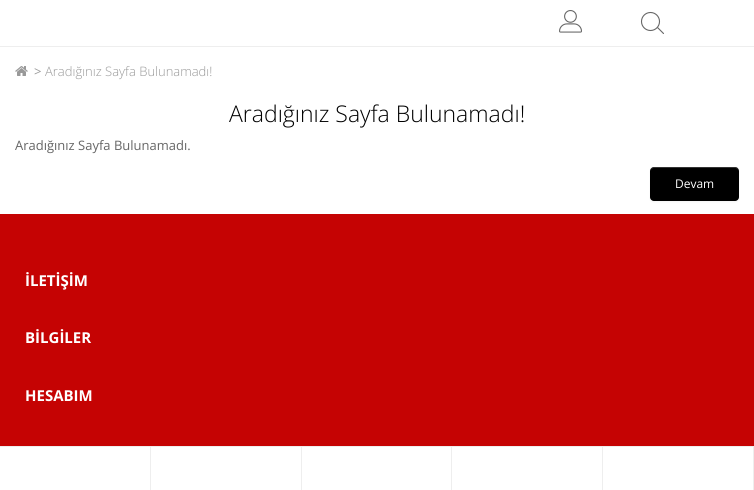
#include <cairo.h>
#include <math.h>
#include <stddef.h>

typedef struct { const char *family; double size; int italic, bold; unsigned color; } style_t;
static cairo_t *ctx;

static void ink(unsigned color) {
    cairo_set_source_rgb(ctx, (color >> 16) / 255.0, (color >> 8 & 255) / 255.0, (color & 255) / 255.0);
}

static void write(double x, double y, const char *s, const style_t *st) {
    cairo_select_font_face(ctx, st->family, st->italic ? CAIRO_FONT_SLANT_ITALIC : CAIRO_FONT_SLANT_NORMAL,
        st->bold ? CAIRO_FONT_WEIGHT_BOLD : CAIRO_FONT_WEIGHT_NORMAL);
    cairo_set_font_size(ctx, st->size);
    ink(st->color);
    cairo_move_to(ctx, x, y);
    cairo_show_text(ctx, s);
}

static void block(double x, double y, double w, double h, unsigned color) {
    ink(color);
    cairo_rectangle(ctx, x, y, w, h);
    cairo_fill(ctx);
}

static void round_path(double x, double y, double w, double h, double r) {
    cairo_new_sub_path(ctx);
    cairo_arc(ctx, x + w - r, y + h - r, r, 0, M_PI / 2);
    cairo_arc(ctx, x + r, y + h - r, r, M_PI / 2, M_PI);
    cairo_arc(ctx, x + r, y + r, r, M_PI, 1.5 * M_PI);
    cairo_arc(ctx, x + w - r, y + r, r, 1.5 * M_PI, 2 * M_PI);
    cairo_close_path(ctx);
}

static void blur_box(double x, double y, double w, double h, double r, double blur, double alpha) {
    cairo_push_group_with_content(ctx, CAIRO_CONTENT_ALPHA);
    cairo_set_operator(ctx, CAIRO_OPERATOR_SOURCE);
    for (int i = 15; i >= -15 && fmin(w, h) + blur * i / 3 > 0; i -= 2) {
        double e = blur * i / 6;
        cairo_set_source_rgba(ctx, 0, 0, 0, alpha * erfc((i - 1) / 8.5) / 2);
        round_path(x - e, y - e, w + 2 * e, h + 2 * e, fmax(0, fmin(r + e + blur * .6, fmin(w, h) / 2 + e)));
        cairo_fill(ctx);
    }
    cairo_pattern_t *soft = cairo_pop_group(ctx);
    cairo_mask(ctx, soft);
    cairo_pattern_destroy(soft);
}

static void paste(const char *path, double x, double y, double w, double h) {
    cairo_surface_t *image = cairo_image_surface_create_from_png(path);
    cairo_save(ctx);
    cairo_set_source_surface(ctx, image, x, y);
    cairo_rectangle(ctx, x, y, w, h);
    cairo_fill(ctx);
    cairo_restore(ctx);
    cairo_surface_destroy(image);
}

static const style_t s1 = {"Open Sans", 13, 0, 0, 0x999999};
static const style_t s2 = {"Open Sans Light", 13, 0, 0, 0x999999};
static const style_t s3 = {"Open Sans Light", 23, 0, 0, 0x000000};
static const style_t s4 = {"Open Sans", 13, 0, 0, 0x666666};
static const style_t s5 = {"Open Sans", 12, 0, 0, 0xffffff};
static const style_t s6 = {"Open Sans", 15, 0, 1, 0xffffff};

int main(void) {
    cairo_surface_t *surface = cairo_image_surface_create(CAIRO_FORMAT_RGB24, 754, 490);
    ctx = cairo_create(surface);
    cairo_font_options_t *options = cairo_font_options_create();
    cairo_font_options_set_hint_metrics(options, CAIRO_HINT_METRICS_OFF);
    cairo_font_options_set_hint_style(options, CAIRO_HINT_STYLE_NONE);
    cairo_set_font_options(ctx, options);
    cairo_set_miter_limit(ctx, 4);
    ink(0xffffff);
    cairo_paint(ctx);
    block(0, 46, 754, 1, 0xeeeeee);
    paste("pic1.png", 559, 10, 23, 23);
    cairo_arc(ctx, 650.5, 21.5, 9, 0, 2 * M_PI);
    ink(0x666666);
    cairo_set_line_width(ctx, 1.1);
    cairo_stroke(ctx);
    cairo_new_path(ctx);
    cairo_move_to(ctx, 657.5, 27.5);
    cairo_line_to(ctx, 663.5, 33.5);
    cairo_set_line_cap(ctx, CAIRO_LINE_CAP_ROUND);
    cairo_stroke(ctx);
    paste("pic2.png", 15, 66, 13, 10);
    write(34, 76, ">", &s1);
    write(45, 76, "Aradığınız Sayfa Bulunamadı!", &s2);
    write(229, 122, "Aradığınız Sayfa Bulunamadı!", &s3);
    write(15, 150, "Aradığınız Sayfa Bulunamadı.", &s4);
    ink(0x000000);
    blur_box(650, 168, 89, 34, 4, 1, 0.05);
    ink(0x000000);
    round_path(650, 167, 89, 34, 4);
    cairo_fill(ctx);
    cairo_set_source_rgba(ctx, 1, 1, 1, 0.2);
    cairo_new_path(ctx);
    cairo_move_to(ctx, 654, 168);
    cairo_line_to(ctx, 735, 168);
    cairo_curve_to(ctx, 737, 168, 739, 170, 739, 172);
    cairo_curve_to(ctx, 739, 164, 726, 167, 722, 167);
    cairo_line_to(ctx, 668, 167);
    cairo_curve_to(ctx, 663, 167, 650, 164, 650, 172);
    cairo_curve_to(ctx, 650, 170, 652, 168, 654, 168);
    cairo_close_path(ctx);
    cairo_fill(ctx);
    write(675, 188, "Devam", &s5);
    block(0, 214, 754, 232, 0xc50303);
    write(25, 286, "İLETİŞİM", &s6);
    write(25, 343, "BİLGİLER", &s6);
    write(25, 401, "HESABIM", &s6);
    block(0, 446, 754, 1, 0xeeeeee);
    block(150, 447, 1, 43, 0xeeeeee);
    block(301, 447, 1, 43, 0xeeeeee);
    block(451, 447, 1, 43, 0xeeeeee);
    block(602, 447, 1, 43, 0xeeeeee);
    block(753, 447, 1, 43, 0xeeeeee);
    cairo_surface_write_to_png(surface, "screenshot.png");
    cairo_font_options_destroy(options);
    cairo_destroy(ctx);
    cairo_surface_destroy(surface);
    return 0;
}
